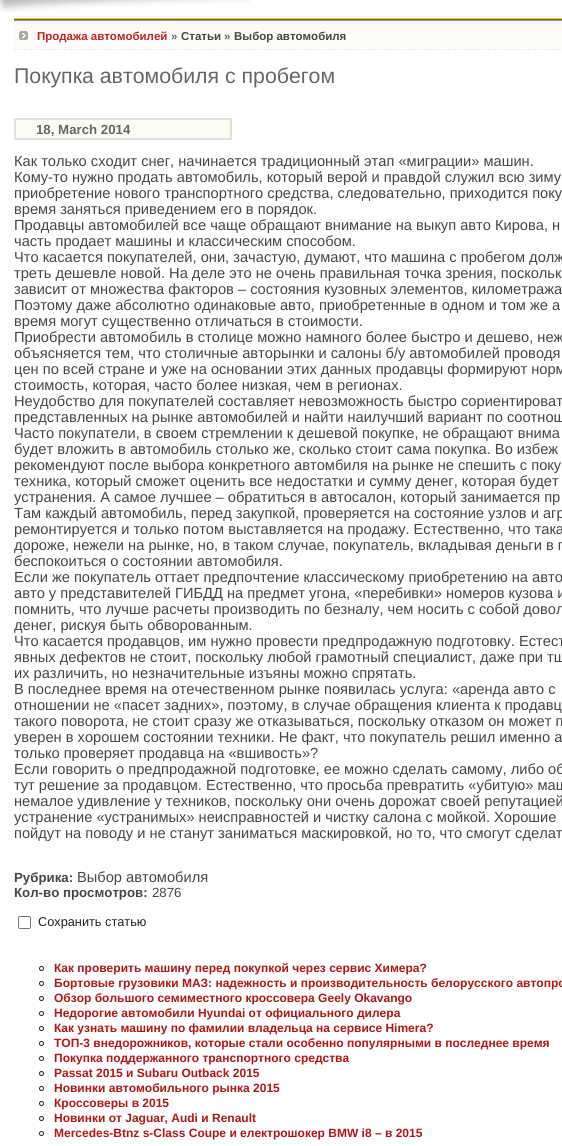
#include <cairo.h>
#include <math.h>
#include <stddef.h>

typedef struct { const char *family; double size; int italic, bold; unsigned color; } style_t;
static cairo_t *ctx;

static void ink(unsigned color) {
    cairo_set_source_rgb(ctx, (color >> 16) / 255.0, (color >> 8 & 255) / 255.0, (color & 255) / 255.0);
}

static void write(double x, double y, const char *s, const style_t *st) {
    cairo_select_font_face(ctx, st->family, st->italic ? CAIRO_FONT_SLANT_ITALIC : CAIRO_FONT_SLANT_NORMAL,
        st->bold ? CAIRO_FONT_WEIGHT_BOLD : CAIRO_FONT_WEIGHT_NORMAL);
    cairo_set_font_size(ctx, st->size);
    ink(st->color);
    cairo_move_to(ctx, x, y);
    cairo_show_text(ctx, s);
}

static void block(double x, double y, double w, double h, unsigned color) {
    ink(color);
    cairo_rectangle(ctx, x, y, w, h);
    cairo_fill(ctx);
}

static void round_path(double x, double y, double w, double h, double r) {
    cairo_new_sub_path(ctx);
    cairo_arc(ctx, x + w - r, y + h - r, r, 0, M_PI / 2);
    cairo_arc(ctx, x + r, y + h - r, r, M_PI / 2, M_PI);
    cairo_arc(ctx, x + r, y + r, r, M_PI, 1.5 * M_PI);
    cairo_arc(ctx, x + w - r, y + r, r, 1.5 * M_PI, 2 * M_PI);
    cairo_close_path(ctx);
}

static void paste(const char *path, double x, double y, double w, double h) {
    cairo_surface_t *image = cairo_image_surface_create_from_png(path);
    cairo_save(ctx);
    cairo_set_source_surface(ctx, image, x, y);
    cairo_rectangle(ctx, x, y, w, h);
    cairo_fill(ctx);
    cairo_restore(ctx);
    cairo_surface_destroy(image);
}

static const style_t s1 = {"Liberation Sans", 11.5, 0, 1, 0xbc2525};
static const style_t s2 = {"Liberation Sans", 11.5, 0, 1, 0x666666};
static const style_t s3 = {"Liberation Sans", 11.5, 0, 1, 0x464646};
static const style_t s4 = {"Liberation Sans", 21.3, 0, 0, 0x666666};
static const style_t s5 = {"Liberation Sans", 13.25, 0, 1, 0x666666};
static const style_t s6 = {"Liberation Sans", 14.65, 0, 0, 0x464646};
static const style_t s7 = {"Liberation Sans", 13.25, 0, 1, 0x464646};
static const style_t s8 = {"Liberation Sans", 13.25, 0, 0, 0x464646};
static const style_t s9 = {"Liberation Sans", 12.75, 0, 0, 0x222222};
static const style_t s10 = {"Liberation Sans", 12, 0, 1, 0xaf1717};

int main(void) {
    cairo_surface_t *surface = cairo_image_surface_create(CAIRO_FORMAT_RGB24, 562, 1146);
    ctx = cairo_create(surface);
    cairo_font_options_t *options = cairo_font_options_create();
    cairo_font_options_set_hint_metrics(options, CAIRO_HINT_METRICS_OFF);
    cairo_font_options_set_hint_style(options, CAIRO_HINT_STYLE_NONE);
    cairo_set_font_options(ctx, options);
    cairo_set_miter_limit(ctx, 4);
    ink(0xffffff);
    cairo_paint(ctx);
    paste("pic1.png", 0, 0, 250, 12);
    paste("pic2.png", 14, 19, 548, 31);
    block(14, 18, 548, 1, 0xffcc00);
    cairo_new_path(ctx);
    cairo_move_to(ctx, 14, 49.5);
    cairo_line_to(ctx, 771, 49.5);
    ink(0xebedde);
    cairo_set_line_width(ctx, 1);
    cairo_set_dash(ctx, (double[]){3, 1.99}, 2, 0);
    cairo_stroke(ctx);
    paste("pic3.png", 19, 31, 9, 9);
    write(37, 40, "Продажа автомобилей", &s1);
    write(171, 40, "»", &s2);
    write(181, 40, "Статьи", &s3);
    write(224, 40, "»", &s2);
    write(234, 40, "Выбор автомобиля", &s3);
    write(14, 83, "Покупка автомобиля с пробегом", &s4);
    ink(0xfcfbf4);
    cairo_rectangle(ctx, 15, 119, 216, 20);
    cairo_fill_preserve(ctx);
    ink(0xdfdfdf);
    cairo_set_line_width(ctx, 2);
    cairo_set_dash(ctx, NULL, 0, 0);
    cairo_stroke(ctx);
    write(36, 134, "18, March 2014", &s5);
    write(14, 166, "Как только сходит снег, начинается традиционный этап «миграции» машин.", &s6);
    write(14, 182, "Кому-то нужно продать автомобиль, который верой и правдой служил всю зиму", &s6);
    write(14, 198, "приобретение нового транспортного средства, следовательно, приходится поку", &s6);
    write(14, 214, "время заняться приведением его в порядок.", &s6);
    write(14, 230, "Продавцы автомобилей все чаще обращают внимание на выкуп авто Кирова, н", &s6);
    write(14, 246, "часть продает машины и классическим способом.", &s6);
    write(14, 262, "Что касается покупателей, они, зачастую, думают, что машина с пробегом долж", &s6);
    write(14, 278, "треть дешевле новой. На деле это не очень правильная точка зрения, поскольк", &s6);
    write(14, 294, "зависит от множества факторов – состояния кузовных элементов, километража", &s6);
    write(14, 310, "Поэтому даже абсолютно одинаковые авто, приобретенные в одном и том же а", &s6);
    write(14, 326, "время могут существенно отличаться в стоимости.", &s6);
    write(14, 342, "Приобрести автомобиль в столице можно намного более быстро и дешево, неж", &s6);
    write(14, 358, "объясняется тем, что столичные авторынки и салоны б/у автомобилей проводя", &s6);
    write(14, 374, "цен по всей стране и уже на основании этих данных продавцы формируют норм", &s6);
    write(14, 390, "стоимость, которая, часто более низкая, чем в регионах.", &s6);
    write(14, 406, "Неудобство для покупателей составляет невозможность быстро сориентироват", &s6);
    write(14, 422, "представленных на рынке автомобилей и найти наилучший вариант по соотнош", &s6);
    write(14, 438, "Часто покупатели, в своем стремлении к дешевой покупке, не обращают внима", &s6);
    write(14, 454, "будет вложить в автомобиль столько же, сколько стоит сама покупка. Во избеж", &s6);
    write(14, 470, "рекомендуют после выбора конкретного автомбиля на рынке не спешить с поку", &s6);
    write(14, 486, "техника, который сможет оценить все недостатки и сумму денег, которая будет", &s6);
    write(14, 502, "устранения. А самое лучшее – обратиться в автосалон, который занимается пр", &s6);
    write(14, 518, "Там каждый автомобиль, перед закупкой, проверяется на состояние узлов и агр", &s6);
    write(14, 534, "ремонтируется и только потом выставляется на продажу. Естественно, что така", &s6);
    write(14, 550, "дороже, нежели на рынке, но, в таком случае, покупатель, вкладывая деньги в п", &s6);
    write(14, 566, "беспокоиться о состоянии автомобиля.", &s6);
    write(14, 582, "Если же покупатель оттает предпочтение классическому приобретению на авто", &s6);
    write(14, 598, "авто у представителей ГИБДД на предмет угона, «перебивки» номеров кузова и", &s6);
    write(14, 614, "помнить, что лучше расчеты производить по безналу, чем носить с собой довол", &s6);
    write(14, 630, "денег, рискуя быть обворованным.", &s6);
    write(14, 646, "Что касается продавцов, им нужно провести предпродажную подготовку. Естест", &s6);
    write(14, 662, "явных дефектов не стоит, поскольку любой грамотный специалист, даже при тщ", &s6);
    write(14, 678, "их различить, но незначительные изъяны можно спрятать.", &s6);
    write(14, 694, "В последнее время на отечественном рынке появилась услуга: «аренда авто с", &s6);
    write(14, 710, "отношении не «пасет задних», поэтому, в случае обращения клиента к продавц", &s6);
    write(14, 726, "такого поворота, не стоит сразу же отказываться, поскольку отказом он может п", &s6);
    write(14, 742, "уверен в хорошем состоянии техники. Не факт, что покупатель решил именно а", &s6);
    write(14, 758, "только проверяет продавца на «вшивость»?", &s6);
    write(14, 774, "Если говорить о предпродажной подготовке, ее можно сделать самому, либо об", &s6);
    write(14, 790, "тут решение за продавцом. Естественно, что просьба превратить «убитую» маш", &s6);
    write(14, 806, "немалое удивление у техников, поскольку они очень дорожат своей репутацией", &s6);
    write(14, 822, "устранение «устранимых» неисправностей и чистку салона с мойкой. Хорошие", &s6);
    write(14, 838, "пойдут на поводу и не станут заниматься маскировкой, но то, что смогут сделат", &s6);
    write(14, 882, "Рубрика:", &s7);
    write(77, 882, "Выбор автомобиля", &s6);
    write(14, 897, "Кол-во просмотров:", &s7);
    write(152, 897, "2876", &s8);
    round_path(18.5, 916.5, 12, 12, 1.5);
    ink(0x767676);
    cairo_set_line_width(ctx, 1);
    cairo_stroke(ctx);
    write(38, 926, "Сохранить статью", &s9);
    cairo_new_path(ctx);
    cairo_arc(ctx, 41.5, 968.5, 2, 0, 2 * M_PI);
    cairo_stroke(ctx);
    write(54, 972, "Как проверить машину перед покупкой через сервис Химера?", &s10);
    cairo_new_path(ctx);
    cairo_arc(ctx, 41.5, 983.5, 2, 0, 2 * M_PI);
    ink(0x222222);
    cairo_stroke(ctx);
    write(54, 987, "Бортовые грузовики МАЗ: надежность и производительность белорусского автопро", &s10);
    cairo_new_path(ctx);
    cairo_arc(ctx, 41.5, 998.5, 2, 0, 2 * M_PI);
    ink(0x222222);
    cairo_stroke(ctx);
    write(54, 1002, "Обзор большого семиместного кроссовера Geely Okavango", &s10);
    cairo_new_path(ctx);
    cairo_arc(ctx, 41.5, 1013.5, 2, 0, 2 * M_PI);
    ink(0x222222);
    cairo_stroke(ctx);
    write(54, 1017, "Недорогие автомобили Hyundai от официального дилера", &s10);
    cairo_new_path(ctx);
    cairo_arc(ctx, 41.5, 1028.5, 2, 0, 2 * M_PI);
    ink(0x222222);
    cairo_stroke(ctx);
    write(54, 1032, "Как узнать машину по фамилии владельца на сервисе Himera?", &s10);
    cairo_new_path(ctx);
    cairo_arc(ctx, 41.5, 1043.5, 2, 0, 2 * M_PI);
    ink(0x222222);
    cairo_stroke(ctx);
    write(54, 1047, "ТОП-3 внедорожников, которые стали особенно популярными в последнее время", &s10);
    cairo_new_path(ctx);
    cairo_arc(ctx, 41.5, 1058.5, 2, 0, 2 * M_PI);
    ink(0x222222);
    cairo_stroke(ctx);
    write(54, 1062, "Покупка поддержанного транспортного средства", &s10);
    cairo_new_path(ctx);
    cairo_arc(ctx, 41.5, 1073.5, 2, 0, 2 * M_PI);
    ink(0x222222);
    cairo_stroke(ctx);
    write(54, 1077, "Passat 2015 и Subaru Outback 2015", &s10);
    cairo_new_path(ctx);
    cairo_arc(ctx, 41.5, 1088.5, 2, 0, 2 * M_PI);
    ink(0x222222);
    cairo_stroke(ctx);
    write(54, 1092, "Новинки автомобильного рынка 2015", &s10);
    cairo_new_path(ctx);
    cairo_arc(ctx, 41.5, 1103.5, 2, 0, 2 * M_PI);
    ink(0x222222);
    cairo_stroke(ctx);
    write(54, 1107, "Кроссоверы в 2015", &s10);
    cairo_new_path(ctx);
    cairo_arc(ctx, 41.5, 1118.5, 2, 0, 2 * M_PI);
    ink(0x222222);
    cairo_stroke(ctx);
    write(54, 1122, "Новинки от Jaguar, Audi и Renault", &s10);
    cairo_new_path(ctx);
    cairo_arc(ctx, 41.5, 1133.5, 2, 0, 2 * M_PI);
    ink(0x222222);
    cairo_stroke(ctx);
    write(54, 1137, "Mercedes-Btnz s-Class Coupe и електрошокер BMW i8 – в 2015", &s10);
    cairo_surface_write_to_png(surface, "screenshot.png");
    cairo_font_options_destroy(options);
    cairo_destroy(ctx);
    cairo_surface_destroy(surface);
    return 0;
}
